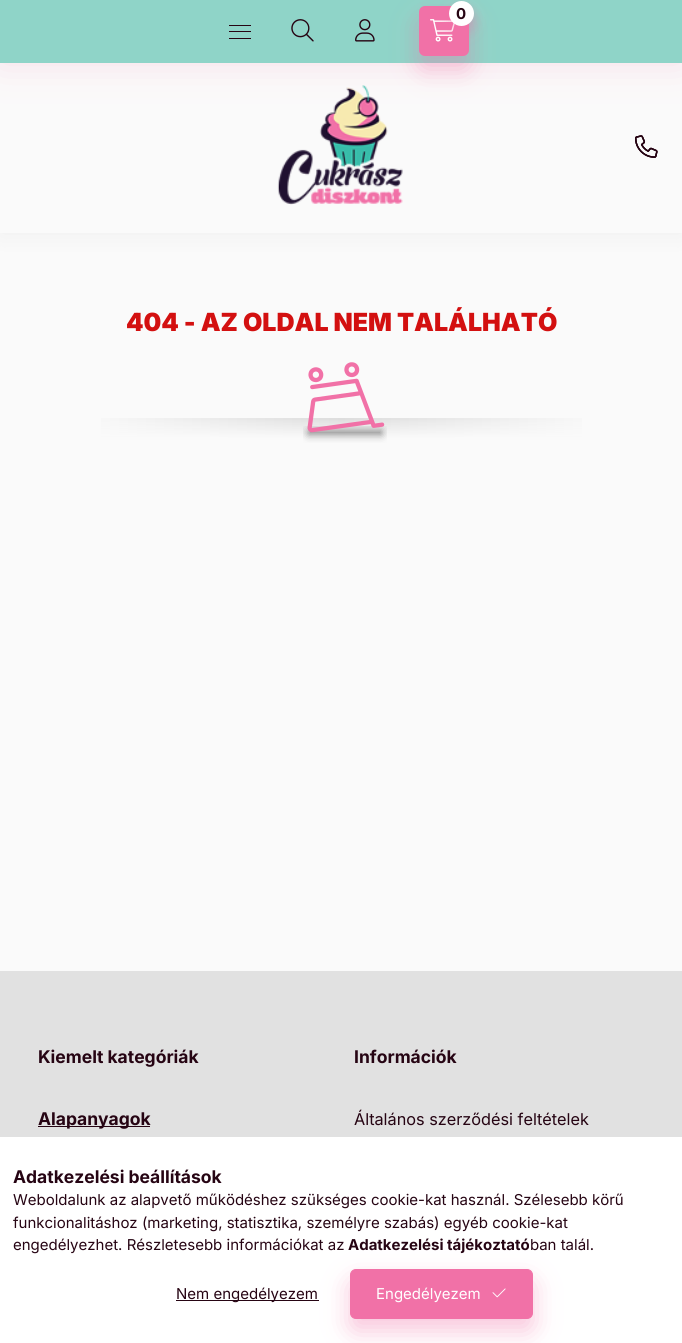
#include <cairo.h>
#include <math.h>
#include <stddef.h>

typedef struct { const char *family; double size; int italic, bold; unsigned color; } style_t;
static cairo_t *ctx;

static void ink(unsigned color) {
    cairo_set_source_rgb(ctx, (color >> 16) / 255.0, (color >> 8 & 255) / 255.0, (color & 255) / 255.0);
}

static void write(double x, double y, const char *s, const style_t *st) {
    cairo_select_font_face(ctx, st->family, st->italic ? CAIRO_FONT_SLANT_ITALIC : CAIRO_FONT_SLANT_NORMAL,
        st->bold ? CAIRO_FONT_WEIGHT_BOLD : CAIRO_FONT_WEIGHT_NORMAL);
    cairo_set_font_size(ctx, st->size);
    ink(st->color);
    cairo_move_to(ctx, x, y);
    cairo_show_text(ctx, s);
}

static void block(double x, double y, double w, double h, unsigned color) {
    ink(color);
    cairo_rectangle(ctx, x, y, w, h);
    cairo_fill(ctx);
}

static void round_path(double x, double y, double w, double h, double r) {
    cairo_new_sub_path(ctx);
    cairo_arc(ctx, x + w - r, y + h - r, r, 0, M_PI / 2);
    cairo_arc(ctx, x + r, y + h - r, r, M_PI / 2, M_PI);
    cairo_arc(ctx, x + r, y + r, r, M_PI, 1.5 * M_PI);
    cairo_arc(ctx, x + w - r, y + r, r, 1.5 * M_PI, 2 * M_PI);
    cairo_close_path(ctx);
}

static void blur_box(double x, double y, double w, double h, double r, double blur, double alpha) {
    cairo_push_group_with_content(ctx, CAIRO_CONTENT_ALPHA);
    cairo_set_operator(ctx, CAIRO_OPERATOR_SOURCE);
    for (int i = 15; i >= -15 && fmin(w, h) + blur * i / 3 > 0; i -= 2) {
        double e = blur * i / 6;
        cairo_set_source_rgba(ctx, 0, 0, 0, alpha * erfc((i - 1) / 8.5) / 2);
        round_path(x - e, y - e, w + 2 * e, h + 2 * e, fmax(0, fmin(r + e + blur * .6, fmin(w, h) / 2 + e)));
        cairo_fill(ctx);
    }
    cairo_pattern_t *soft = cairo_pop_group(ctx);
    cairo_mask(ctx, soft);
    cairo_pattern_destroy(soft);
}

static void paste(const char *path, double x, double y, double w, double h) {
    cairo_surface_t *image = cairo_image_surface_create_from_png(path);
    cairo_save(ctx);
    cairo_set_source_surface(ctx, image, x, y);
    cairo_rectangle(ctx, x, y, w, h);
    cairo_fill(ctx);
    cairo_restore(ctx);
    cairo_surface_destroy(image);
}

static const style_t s1 = {"Inter", 15, 0, 1, 0x260413};
static const style_t s2 = {"Inter Black", 25, 0, 0, 0xd31010};
static const style_t s3 = {"Inter", 17.5, 0, 1, 0x260413};
static const style_t s4 = {"Inter", 16.25, 0, 0, 0x260413};
static const style_t s5 = {"Inter", 15, 0, 0, 0x260413};
static const style_t s6 = {"Inter", 15, 0, 0, 0xffffff};

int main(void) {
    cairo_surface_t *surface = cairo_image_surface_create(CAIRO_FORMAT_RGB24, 682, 1343);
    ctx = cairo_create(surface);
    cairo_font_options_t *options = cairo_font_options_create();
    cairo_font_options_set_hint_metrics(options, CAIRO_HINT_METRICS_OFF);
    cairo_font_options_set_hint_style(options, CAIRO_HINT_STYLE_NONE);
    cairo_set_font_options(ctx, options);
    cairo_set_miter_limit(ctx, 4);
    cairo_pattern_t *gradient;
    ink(0xfafafa);
    cairo_paint(ctx);
    ink(0x000000);
    blur_box(0, 63, 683, 170, 0, 12.5, 0.05);
    block(0, 63, 682, 170, 0xfafafa);
    paste("pic4.png", 277, 85, 126, 120);
    ink(0xf171a7);
    blur_box(0, 0, 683, 63, 0, 19, 0.2);
    block(0, 0, 682, 63, 0x8fd4c8);
    ink(0xf171a7);
    blur_box(419, 19, 50, 50, 6, 12.5, 0.4);
    ink(0xf171a7);
    round_path(419, 6, 50, 50, 6);
    cairo_fill(ctx);
    paste("pic1.png", 430, 19, 25, 23);
    ink(0xf171a7);
    blur_box(449, 8, 25, 25, 12.5, 6, 0.4);
    ink(0xffffff);
    cairo_arc(ctx, 461.5, 13.5, 12.5, 0, 2 * M_PI);
    cairo_fill(ctx);
    write(456, 19, "0", &s1);
    block(229, 25, 22, 1, 0x260413);
    block(229, 31, 22, 1, 0x260413);
    block(229, 38, 22, 1, 0x260413);
    paste("pic2.png", 291, 19, 23, 23);
    paste("pic3.png", 355, 19, 20, 23);
    paste("pic5.png", 635, 135, 23, 23);
    paste("pic6.png", 635, 135, 23, 23);
    paste("pic7.png", 635, 135, 23, 23);
    write(126, 331, "404 - AZ OLDAL NEM TALÁLHATÓ", &s2);
    gradient = cairo_pattern_create_linear(13, 428, 670, 428);
    cairo_pattern_add_color_stop_rgba(gradient, 0.1, 0.98, 0.98, 0.98, 1);
    cairo_pattern_add_color_stop_rgba(gradient, 0.5, 0.867, 0.867, 0.867, 1);
    cairo_pattern_add_color_stop_rgba(gradient, 0.9, 0.98, 0.98, 0.98, 1);
    cairo_set_source(ctx, gradient);
    cairo_pattern_destroy(gradient);
    cairo_rectangle(ctx, 101, 418, 481, 20);
    cairo_fill(ctx);
    gradient = cairo_pattern_create_linear(341, 438, 341, 418);
    cairo_pattern_add_color_stop_rgba(gradient, 0, 0.98, 0.98, 0.98, 1);
    cairo_pattern_add_color_stop_rgba(gradient, 1, 0.98, 0.98, 0.98, 0);
    cairo_set_source(ctx, gradient);
    cairo_pattern_destroy(gradient);
    cairo_rectangle(ctx, 101, 420, 481, 18);
    cairo_fill(ctx);
    cairo_save(ctx);
    cairo_rectangle(ctx, 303, 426, 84, 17);
    cairo_clip(ctx);
    ink(0x808080);
    blur_box(309, 431, 72, 3, 0, 4.5, 1);
    cairo_restore(ctx);
    paste("pic8.png", 307, 362, 78, 71);
    block(0, 971, 682, 166, 0xe1e1e1);
    write(38, 1063, "Kiemelt kategóriák", &s3);
    block(38, 1126, 112, 1, 0x260413);
    write(38, 1125, "Alapanyagok", &s3);
    write(354, 1063, "Információk", &s3);
    write(354, 1125, "Általános szerződési feltételek", &s4);
    block(0, 1137, 682, 206, 0xffffff);
    write(13, 1183, "Adatkezelési beállítások", &s3);
    write(13, 1205, "Weboldalunk az alapvető működéshez szükséges cookie-kat használ. Szélesebb körű", &s5);
    write(13, 1228, "funkcionalitáshoz (marketing, statisztika, személyre szabás) egyéb cookie-kat", &s5);
    write(13, 1250, "engedélyezhet. Részletesebb információkat az", &s5);
    write(348, 1250, "Adatkezelési tájékoztató", &s1);
    write(530, 1250, "ban talál.", &s5);
    block(176, 1300, 143, 1, 0x260413);
    write(176, 1299, "Nem engedélyezem", &s5);
    ink(0xf171a7);
    blur_box(350, 1281, 183, 50, 6, 12.5, 0.4);
    ink(0xf171a7);
    round_path(350.5, 1269.5, 182, 49, 5.5);
    cairo_fill_preserve(ctx);
    cairo_set_line_width(ctx, 1);
    cairo_stroke(ctx);
    write(376, 1299, "Engedélyezem", &s6);
    paste("pic9.png", 492, 1288, 14, 10);
    cairo_surface_write_to_png(surface, "screenshot.png");
    cairo_font_options_destroy(options);
    cairo_destroy(ctx);
    cairo_surface_destroy(surface);
    return 0;
}
